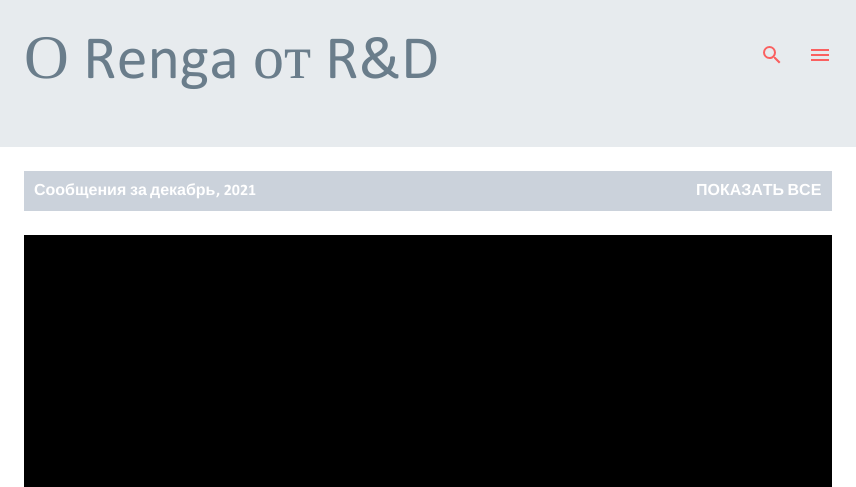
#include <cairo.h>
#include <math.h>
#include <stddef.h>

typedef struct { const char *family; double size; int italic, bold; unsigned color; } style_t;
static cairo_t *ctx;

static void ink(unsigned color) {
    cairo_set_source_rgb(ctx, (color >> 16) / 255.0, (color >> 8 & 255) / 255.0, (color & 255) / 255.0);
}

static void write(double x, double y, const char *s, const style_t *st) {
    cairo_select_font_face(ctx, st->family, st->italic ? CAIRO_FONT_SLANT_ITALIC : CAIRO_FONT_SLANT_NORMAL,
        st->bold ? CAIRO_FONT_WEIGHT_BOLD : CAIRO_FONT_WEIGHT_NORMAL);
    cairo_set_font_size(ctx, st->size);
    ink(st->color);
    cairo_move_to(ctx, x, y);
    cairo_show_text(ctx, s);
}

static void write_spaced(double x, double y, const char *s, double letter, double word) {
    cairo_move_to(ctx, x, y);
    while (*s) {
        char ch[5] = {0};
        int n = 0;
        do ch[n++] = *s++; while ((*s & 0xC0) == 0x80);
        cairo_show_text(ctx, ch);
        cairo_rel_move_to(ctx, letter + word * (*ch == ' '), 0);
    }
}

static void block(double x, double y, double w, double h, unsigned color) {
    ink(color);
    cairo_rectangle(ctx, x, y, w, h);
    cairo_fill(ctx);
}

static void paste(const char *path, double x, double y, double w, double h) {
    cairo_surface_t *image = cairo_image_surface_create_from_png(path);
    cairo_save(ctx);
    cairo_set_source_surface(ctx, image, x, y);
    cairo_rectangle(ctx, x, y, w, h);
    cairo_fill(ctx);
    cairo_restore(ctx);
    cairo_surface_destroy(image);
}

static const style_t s1 = {"Liberation Serif", 62, 0, 0, 0x6a7d8b};
static const style_t s2 = {"Calibri", 62, 0, 0, 0x6a7d8b};
static const style_t s3 = {"Liberation Sans", 16, 0, 1, 0xffffff};
static const style_t s4 = {"Calibri", 16, 0, 1, 0xffffff};

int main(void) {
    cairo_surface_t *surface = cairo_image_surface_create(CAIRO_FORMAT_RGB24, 856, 487);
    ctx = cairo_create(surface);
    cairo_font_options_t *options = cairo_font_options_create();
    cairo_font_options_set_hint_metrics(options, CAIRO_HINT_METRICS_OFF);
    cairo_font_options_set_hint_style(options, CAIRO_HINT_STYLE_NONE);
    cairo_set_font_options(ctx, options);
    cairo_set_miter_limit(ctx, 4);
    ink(0xffffff);
    cairo_paint(ctx);
    block(0, 0, 856, 147, 0xe7ebee);
    write(24, 78, "О", &s1);
    write(83, 78, "Renga", &s2);
    write(253, 78, "от", &s1);
    write(325, 78, "R&D", &s2);
    paste("pic1.png", 763, 46, 18, 18);
    paste("pic2.png", 811, 49, 18, 12);
    block(24, 171, 808, 40, 0xcbd2db);
    write(34, 195, "Сообщения", &s3);
    write(130, 195, "за", &s3);
    write(150, 195, "декабрь", &s3);
    write(216, 195, ", 2021", &s4);
    cairo_select_font_face(ctx, "Liberation Sans", CAIRO_FONT_SLANT_NORMAL, CAIRO_FONT_WEIGHT_BOLD);
    write_spaced(696, 195, "ПОКАЗАТЬ ВСЕ", 0, -1);
    block(24, 235, 808, 252, 0x000000);
    cairo_surface_write_to_png(surface, "screenshot.png");
    cairo_font_options_destroy(options);
    cairo_destroy(ctx);
    cairo_surface_destroy(surface);
    return 0;
}
